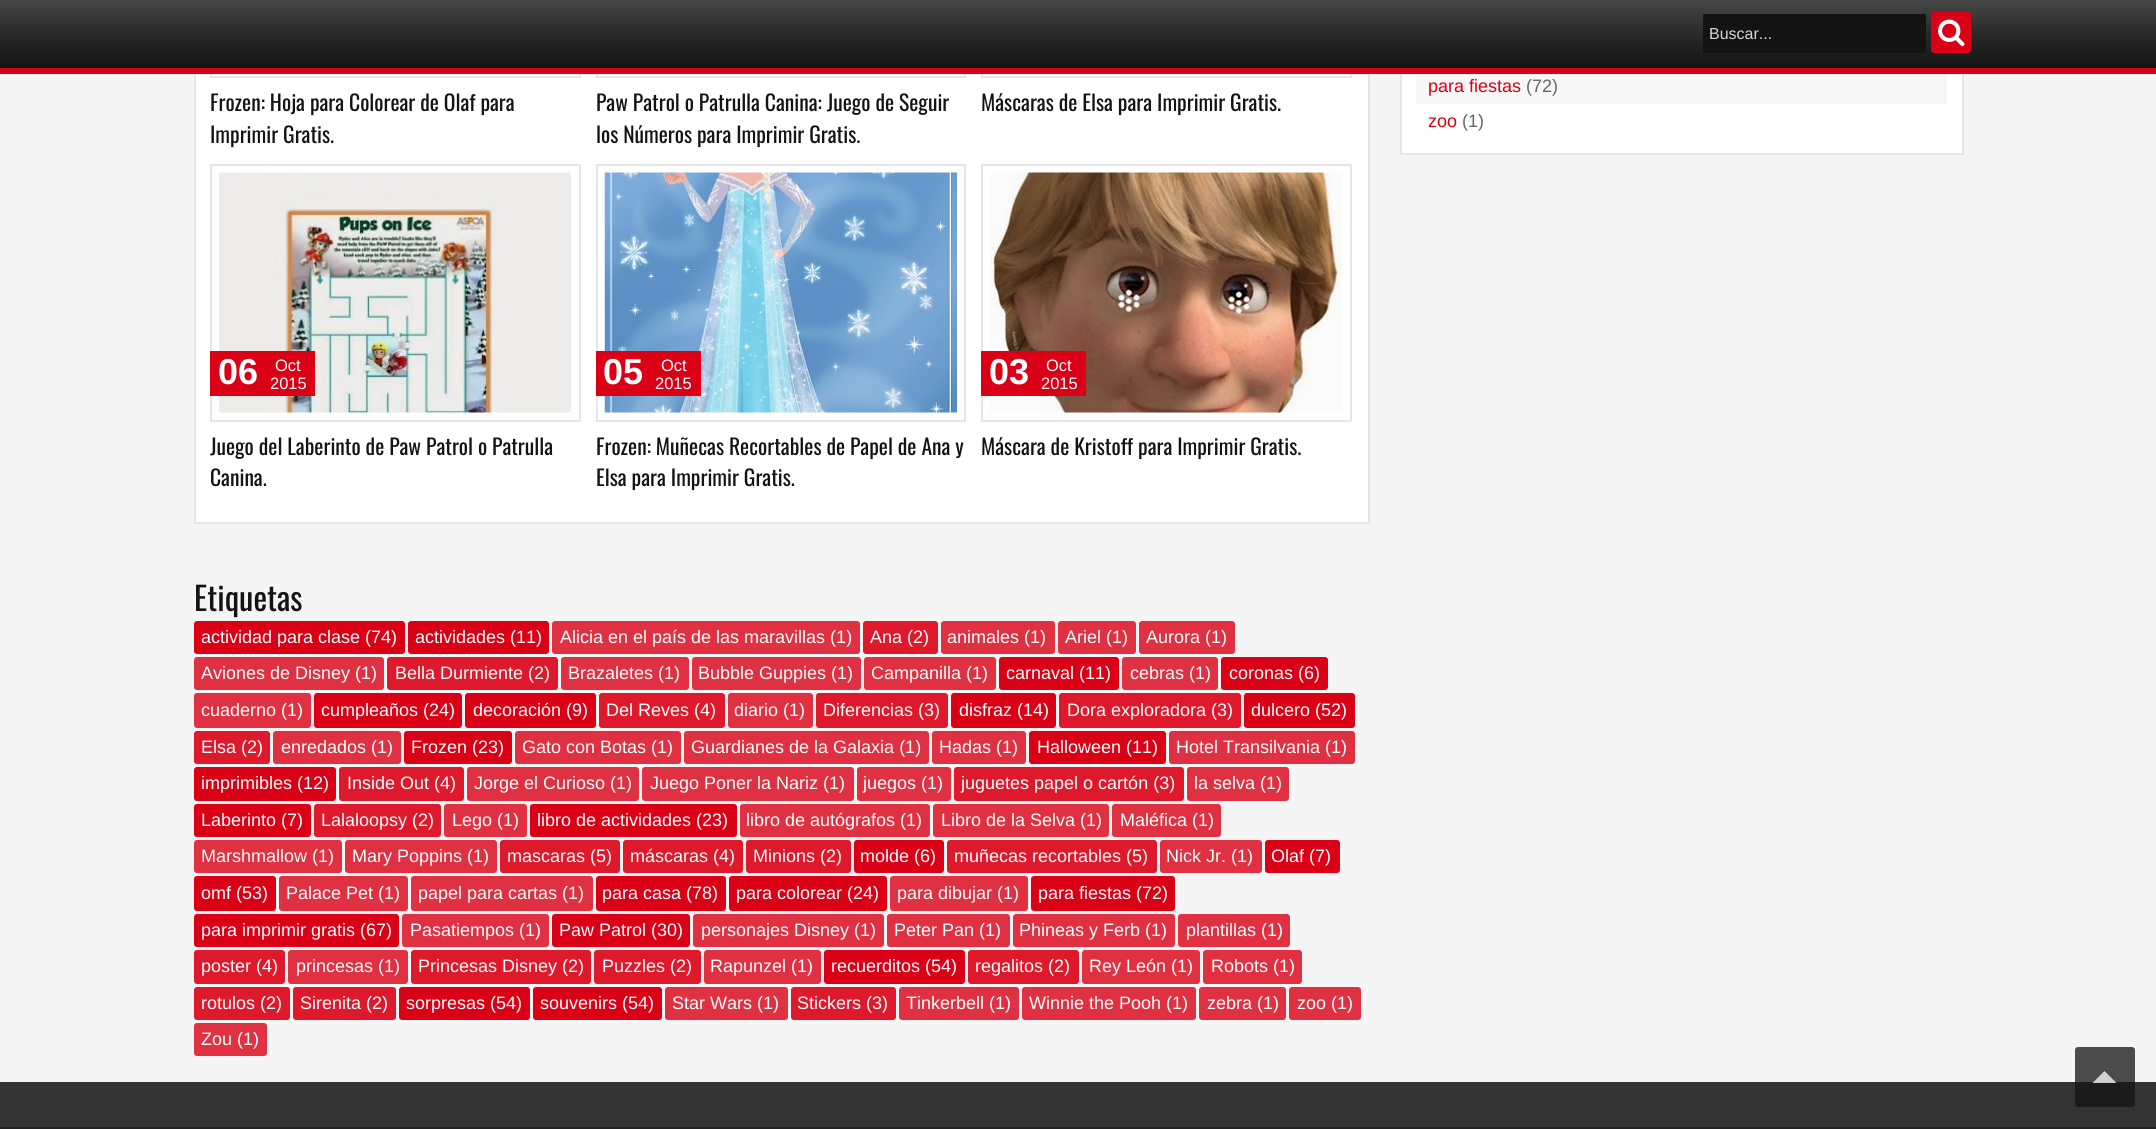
#include <cairo.h>
#include <math.h>
#include <stddef.h>

typedef struct { const char *family; double size; int italic, bold; unsigned color; } style_t;
static cairo_t *ctx;

static void ink(unsigned color) {
    cairo_set_source_rgb(ctx, (color >> 16) / 255.0, (color >> 8 & 255) / 255.0, (color & 255) / 255.0);
}

static void write(double x, double y, const char *s, const style_t *st) {
    cairo_select_font_face(ctx, st->family, st->italic ? CAIRO_FONT_SLANT_ITALIC : CAIRO_FONT_SLANT_NORMAL,
        st->bold ? CAIRO_FONT_WEIGHT_BOLD : CAIRO_FONT_WEIGHT_NORMAL);
    cairo_set_font_size(ctx, st->size);
    ink(st->color);
    cairo_move_to(ctx, x, y);
    cairo_show_text(ctx, s);
}

static void block(double x, double y, double w, double h, unsigned color) {
    ink(color);
    cairo_rectangle(ctx, x, y, w, h);
    cairo_fill(ctx);
}

static void round_path(double x, double y, double w, double h, double r) {
    cairo_new_sub_path(ctx);
    cairo_arc(ctx, x + w - r, y + h - r, r, 0, M_PI / 2);
    cairo_arc(ctx, x + r, y + h - r, r, M_PI / 2, M_PI);
    cairo_arc(ctx, x + r, y + r, r, M_PI, 1.5 * M_PI);
    cairo_arc(ctx, x + w - r, y + r, r, 1.5 * M_PI, 2 * M_PI);
    cairo_close_path(ctx);
}

static void paste(const char *path, double x, double y, double w, double h) {
    cairo_surface_t *image = cairo_image_surface_create_from_png(path);
    cairo_save(ctx);
    cairo_set_source_surface(ctx, image, x, y);
    cairo_rectangle(ctx, x, y, w, h);
    cairo_fill(ctx);
    cairo_restore(ctx);
    cairo_surface_destroy(image);
}

static const style_t s1 = {"Liberation Sans", 16, 0, 0, 0xd6d6d6};
static const style_t s2 = {"Oswald", 21.6, 0, 0, 0x131313};
static const style_t s3 = {"Liberation Sans", 36, 0, 1, 0xffffff};
static const style_t s4 = {"Liberation Sans", 16.5, 0, 0, 0xffffff};
static const style_t s5 = {"Oswald", 32.5, 0, 0, 0x131313};
static const style_t s6 = {"Liberation Sans", 18, 0, 0, 0xffffff};
static const style_t s7 = {"Liberation Sans", 18, 0, 0, 0xda0015};
static const style_t s8 = {"Liberation Sans", 18, 0, 0, 0x666666};

int main(void) {
    cairo_surface_t *surface = cairo_image_surface_create(CAIRO_FORMAT_RGB24, 2156, 1129);
    ctx = cairo_create(surface);
    cairo_font_options_t *options = cairo_font_options_create();
    cairo_font_options_set_hint_metrics(options, CAIRO_HINT_METRICS_OFF);
    cairo_font_options_set_hint_style(options, CAIRO_HINT_STYLE_NONE);
    cairo_set_font_options(ctx, options);
    cairo_set_miter_limit(ctx, 4);
    cairo_pattern_t *gradient;
    ink(0xf5f5f5);
    cairo_paint(ctx);
    block(196, 74, 1172, 448, 0xffffff);
    cairo_rectangle(ctx, 195, -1, 1174, 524);
    ink(0xe6e6e6);
    cairo_stroke(ctx);
    cairo_rectangle(ctx, 211, -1, 369, 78);
    cairo_stroke(ctx);
    cairo_rectangle(ctx, 597, -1, 368, 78);
    cairo_stroke(ctx);
    cairo_rectangle(ctx, 982, -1, 369, 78);
    cairo_stroke(ctx);
    block(1402, 74, 560, 79, 0xffffff);
    cairo_rectangle(ctx, 1401, -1, 562, 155);
    ink(0xe6e6e6);
    cairo_stroke(ctx);
    gradient = cairo_pattern_create_linear(1079, 0, 1079, 68);
    cairo_pattern_add_color_stop_rgba(gradient, 0, 0.278, 0.278, 0.278, 1);
    cairo_pattern_add_color_stop_rgba(gradient, 0.5, 0.161, 0.161, 0.161, 1);
    cairo_pattern_add_color_stop_rgba(gradient, 1, 0.075, 0.075, 0.075, 1);
    cairo_set_source(ctx, gradient);
    cairo_pattern_destroy(gradient);
    cairo_rectangle(ctx, 0, 0, 2156, 68);
    cairo_fill(ctx);
    block(0, 68, 2156, 6, 0xda0015);
    ink(0x131313);
    round_path(1703, 14, 223, 39, 1.5);
    cairo_fill(ctx);
    write(1709, 39, "Buscar...", &s1);
    ink(0xda0015);
    round_path(1931, 12, 40, 41, 3);
    cairo_fill(ctx);
    paste("pic1.png", 1938, 19, 27, 28);
    write(210, 111, "Frozen: Hoja para Colorear de Olaf para", &s2);
    write(210, 143, "Imprimir Gratis.", &s2);
    write(596, 111, "Paw Patrol o Patrulla Canina: Juego de Seguir", &s2);
    write(596, 143, "los Números para Imprimir Gratis.", &s2);
    write(981, 111, "Máscaras de Elsa para Imprimir Gratis.", &s2);
    cairo_rectangle(ctx, 211, 165, 369, 256);
    ink(0xe6e6e6);
    cairo_stroke(ctx);
    paste("pic2.png", 219, 172, 353, 241);
    block(210, 351, 105, 45, 0xda0015);
    write(218, 384, "06", &s3);
    write(275, 371, "Oct", &s4);
    write(270, 389, "2015", &s4);
    write(210, 455, "Juego del Laberinto de Paw Patrol o Patrulla", &s2);
    write(210, 486, "Canina.", &s2);
    cairo_rectangle(ctx, 597, 165, 368, 256);
    ink(0xe6e6e6);
    cairo_stroke(ctx);
    paste("pic3.png", 604, 172, 353, 241);
    block(596, 351, 105, 45, 0xda0015);
    write(603, 384, "05", &s3);
    write(661, 371, "Oct", &s4);
    write(655, 389, "2015", &s4);
    write(596, 455, "Frozen: Muñecas Recortables de Papel de Ana y", &s2);
    write(596, 486, "Elsa para Imprimir Gratis.", &s2);
    cairo_rectangle(ctx, 982, 165, 369, 256);
    ink(0xe6e6e6);
    cairo_stroke(ctx);
    paste("pic4.png", 990, 172, 352, 241);
    block(981, 351, 105, 45, 0xda0015);
    write(989, 384, "03", &s3);
    write(1046, 371, "Oct", &s4);
    write(1041, 389, "2015", &s4);
    write(981, 455, "Máscara de Kristoff para Imprimir Gratis.", &s2);
    write(194, 611, "Etiquetas", &s5);
    ink(0xda0015);
    round_path(194, 621, 211, 33, 3);
    cairo_fill(ctx);
    write(201, 643, "actividad para clase (74)", &s6);
    ink(0xda0015);
    round_path(408, 621, 141, 33, 3);
    cairo_fill(ctx);
    write(415, 643, "actividades (11)", &s6);
    ink(0xdf3142);
    round_path(552, 621, 308, 33, 3);
    cairo_fill(ctx);
    write(560, 643, "Alicia en el país de las maravillas (1)", &s6);
    ink(0xdd192b);
    round_path(863, 621, 75, 33, 3);
    cairo_fill(ctx);
    write(870, 643, "Ana (2)", &s6);
    ink(0xdf3142);
    round_path(941, 621, 114, 33, 3);
    cairo_fill(ctx);
    write(947, 643, "animales (1)", &s6);
    ink(0xdf3142);
    round_path(1058, 621, 78, 33, 3);
    cairo_fill(ctx);
    write(1065, 643, "Ariel (1)", &s6);
    ink(0xdf3142);
    round_path(1139, 621, 96, 33, 3);
    cairo_fill(ctx);
    write(1146, 643, "Aurora (1)", &s6);
    ink(0xdf3142);
    round_path(194, 657, 190, 33, 3);
    cairo_fill(ctx);
    write(201, 679, "Aviones de Disney (1)", &s6);
    ink(0xdd192b);
    round_path(387, 657, 171, 33, 3);
    cairo_fill(ctx);
    write(395, 679, "Bella Durmiente (2)", &s6);
    ink(0xdf3142);
    round_path(561, 657, 128, 33, 3);
    cairo_fill(ctx);
    write(568, 679, "Brazaletes (1)", &s6);
    ink(0xdf3142);
    round_path(692, 657, 169, 33, 3);
    cairo_fill(ctx);
    write(698, 679, "Bubble Guppies (1)", &s6);
    ink(0xdf3142);
    round_path(864, 657, 132, 33, 3);
    cairo_fill(ctx);
    write(871, 679, "Campanilla (1)", &s6);
    ink(0xda0015);
    round_path(999, 657, 120, 33, 3);
    cairo_fill(ctx);
    write(1006, 679, "carnaval (11)", &s6);
    ink(0xdf3142);
    round_path(1122, 657, 96, 33, 3);
    cairo_fill(ctx);
    write(1130, 679, "cebras (1)", &s6);
    ink(0xda0015);
    round_path(1221, 657, 107, 33, 3);
    cairo_fill(ctx);
    write(1229, 679, "coronas (6)", &s6);
    ink(0xdf3142);
    round_path(194, 693, 117, 35, 3);
    cairo_fill(ctx);
    write(201, 716, "cuaderno (1)", &s6);
    ink(0xda0015);
    round_path(314, 693, 148, 35, 3);
    cairo_fill(ctx);
    write(321, 716, "cumpleaños (24)", &s6);
    ink(0xda0015);
    round_path(465, 693, 131, 35, 3);
    cairo_fill(ctx);
    write(473, 716, "decoración (9)", &s6);
    ink(0xdd192b);
    round_path(599, 693, 126, 35, 3);
    cairo_fill(ctx);
    write(606, 716, "Del Reves (4)", &s6);
    ink(0xdf3142);
    round_path(728, 693, 85, 35, 3);
    cairo_fill(ctx);
    write(734, 716, "diario (1)", &s6);
    ink(0xdd192b);
    round_path(816, 693, 132, 35, 3);
    cairo_fill(ctx);
    write(823, 716, "Diferencias (3)", &s6);
    ink(0xda0015);
    round_path(951, 693, 105, 35, 3);
    cairo_fill(ctx);
    write(959, 716, "disfraz (14)", &s6);
    ink(0xdd192b);
    round_path(1059, 693, 182, 35, 3);
    cairo_fill(ctx);
    write(1067, 716, "Dora exploradora (3)", &s6);
    ink(0xda0015);
    round_path(1244, 693, 111, 35, 3);
    cairo_fill(ctx);
    write(1251, 716, "dulcero (52)", &s6);
    ink(0xdd192b);
    round_path(194, 731, 76, 33, 3);
    cairo_fill(ctx);
    write(201, 753, "Elsa (2)", &s6);
    ink(0xdf3142);
    round_path(273, 731, 128, 33, 3);
    cairo_fill(ctx);
    write(281, 753, "enredados (1)", &s6);
    ink(0xda0015);
    round_path(404, 731, 108, 33, 3);
    cairo_fill(ctx);
    write(411, 753, "Frozen (23)", &s6);
    ink(0xdf3142);
    round_path(515, 731, 166, 33, 3);
    cairo_fill(ctx);
    write(522, 753, "Gato con Botas (1)", &s6);
    ink(0xdf3142);
    round_path(684, 731, 245, 33, 3);
    cairo_fill(ctx);
    write(691, 753, "Guardianes de la Galaxia (1)", &s6);
    ink(0xdf3142);
    round_path(932, 731, 94, 33, 3);
    cairo_fill(ctx);
    write(939, 753, "Hadas (1)", &s6);
    ink(0xda0015);
    round_path(1029, 731, 137, 33, 3);
    cairo_fill(ctx);
    write(1037, 753, "Halloween (11)", &s6);
    ink(0xdf3142);
    round_path(1169, 731, 186, 33, 3);
    cairo_fill(ctx);
    write(1176, 753, "Hotel Transilvania (1)", &s6);
    ink(0xda0015);
    round_path(194, 767, 142, 34, 3);
    cairo_fill(ctx);
    write(201, 789, "imprimibles (12)", &s6);
    ink(0xdd192b);
    round_path(339, 767, 125, 34, 3);
    cairo_fill(ctx);
    write(347, 789, "Inside Out (4)", &s6);
    ink(0xdf3142);
    round_path(467, 767, 172, 34, 3);
    cairo_fill(ctx);
    write(474, 789, "Jorge el Curioso (1)", &s6);
    ink(0xdf3142);
    round_path(642, 767, 212, 34, 3);
    cairo_fill(ctx);
    write(650, 789, "Juego Poner la Nariz (1)", &s6);
    ink(0xdf3142);
    round_path(857, 767, 94, 34, 3);
    cairo_fill(ctx);
    write(863, 789, "juegos (1)", &s6);
    ink(0xdd192b);
    round_path(954, 767, 230, 34, 3);
    cairo_fill(ctx);
    write(961, 789, "juguetes papel o cartón (3)", &s6);
    ink(0xdf3142);
    round_path(1187, 767, 102, 34, 3);
    cairo_fill(ctx);
    write(1194, 789, "la selva (1)", &s6);
    ink(0xda0015);
    round_path(194, 804, 117, 33, 3);
    cairo_fill(ctx);
    write(201, 826, "Laberinto (7)", &s6);
    ink(0xdd192b);
    round_path(314, 804, 127, 33, 3);
    cairo_fill(ctx);
    write(321, 826, "Lalaloopsy (2)", &s6);
    ink(0xdf3142);
    round_path(444, 804, 83, 33, 3);
    cairo_fill(ctx);
    write(452, 826, "Lego (1)", &s6);
    ink(0xda0015);
    round_path(530, 804, 207, 33, 3);
    cairo_fill(ctx);
    write(537, 826, "libro de actividades (23)", &s6);
    ink(0xdf3142);
    round_path(740, 804, 190, 33, 3);
    cairo_fill(ctx);
    write(746, 826, "libro de autógrafos (1)", &s6);
    ink(0xdf3142);
    round_path(933, 804, 176, 33, 3);
    cairo_fill(ctx);
    write(941, 826, "Libro de la Selva (1)", &s6);
    ink(0xdf3142);
    round_path(1112, 804, 109, 33, 3);
    cairo_fill(ctx);
    write(1120, 826, "Maléfica (1)", &s6);
    ink(0xdf3142);
    round_path(194, 840, 148, 33, 3);
    cairo_fill(ctx);
    write(201, 862, "Marshmallow (1)", &s6);
    ink(0xdf3142);
    round_path(345, 840, 152, 33, 3);
    cairo_fill(ctx);
    write(352, 862, "Mary Poppins (1)", &s6);
    ink(0xdd192b);
    round_path(500, 840, 120, 33, 3);
    cairo_fill(ctx);
    write(507, 862, "mascaras (5)", &s6);
    ink(0xdd192b);
    round_path(623, 840, 120, 33, 3);
    cairo_fill(ctx);
    write(630, 862, "máscaras (4)", &s6);
    ink(0xdd192b);
    round_path(746, 840, 105, 33, 3);
    cairo_fill(ctx);
    write(753, 862, "Minions (2)", &s6);
    ink(0xda0015);
    round_path(854, 840, 90, 33, 3);
    cairo_fill(ctx);
    write(860, 862, "molde (6)", &s6);
    ink(0xdd192b);
    round_path(947, 840, 210, 33, 3);
    cairo_fill(ctx);
    write(954, 862, "muñecas recortables (5)", &s6);
    ink(0xdf3142);
    round_path(1160, 840, 102, 33, 3);
    cairo_fill(ctx);
    write(1166, 862, "Nick Jr. (1)", &s6);
    ink(0xda0015);
    round_path(1265, 840, 75, 33, 3);
    cairo_fill(ctx);
    write(1271, 862, "Olaf (7)", &s6);
    ink(0xda0015);
    round_path(194, 876, 82, 35, 3);
    cairo_fill(ctx);
    write(201, 899, "omf (53)", &s6);
    ink(0xdf3142);
    round_path(279, 876, 129, 35, 3);
    cairo_fill(ctx);
    write(286, 899, "Palace Pet (1)", &s6);
    ink(0xdf3142);
    round_path(411, 876, 182, 35, 3);
    cairo_fill(ctx);
    write(418, 899, "papel para cartas (1)", &s6);
    ink(0xda0015);
    round_path(596, 876, 130, 35, 3);
    cairo_fill(ctx);
    write(602, 899, "para casa (78)", &s6);
    ink(0xda0015);
    round_path(729, 876, 158, 35, 3);
    cairo_fill(ctx);
    write(736, 899, "para colorear (24)", &s6);
    ink(0xdf3142);
    round_path(890, 876, 138, 35, 3);
    cairo_fill(ctx);
    write(897, 899, "para dibujar (1)", &s6);
    ink(0xda0015);
    round_path(1031, 876, 144, 35, 3);
    cairo_fill(ctx);
    write(1038, 899, "para fiestas (72)", &s6);
    ink(0xda0015);
    round_path(194, 914, 205, 33, 3);
    cairo_fill(ctx);
    write(201, 936, "para imprimir gratis (67)", &s6);
    ink(0xdf3142);
    round_path(402, 914, 147, 33, 3);
    cairo_fill(ctx);
    write(410, 936, "Pasatiempos (1)", &s6);
    ink(0xda0015);
    round_path(552, 914, 138, 33, 3);
    cairo_fill(ctx);
    write(559, 936, "Paw Patrol (30)", &s6);
    ink(0xdf3142);
    round_path(693, 914, 191, 33, 3);
    cairo_fill(ctx);
    write(701, 936, "personajes Disney (1)", &s6);
    ink(0xdf3142);
    round_path(887, 914, 123, 33, 3);
    cairo_fill(ctx);
    write(894, 936, "Peter Pan (1)", &s6);
    ink(0xdf3142);
    round_path(1013, 914, 162, 33, 3);
    cairo_fill(ctx);
    write(1019, 936, "Phineas y Ferb (1)", &s6);
    ink(0xdf3142);
    round_path(1178, 914, 112, 33, 3);
    cairo_fill(ctx);
    write(1186, 936, "plantillas (1)", &s6);
    ink(0xdd192b);
    round_path(194, 950, 91, 34, 3);
    cairo_fill(ctx);
    write(201, 972, "poster (4)", &s6);
    ink(0xdf3142);
    round_path(288, 950, 120, 34, 3);
    cairo_fill(ctx);
    write(296, 972, "princesas (1)", &s6);
    ink(0xdd192b);
    round_path(411, 950, 180, 34, 3);
    cairo_fill(ctx);
    write(418, 972, "Princesas Disney (2)", &s6);
    ink(0xdd192b);
    round_path(594, 950, 107, 34, 3);
    cairo_fill(ctx);
    write(602, 972, "Puzzles (2)", &s6);
    ink(0xdf3142);
    round_path(704, 950, 117, 34, 3);
    cairo_fill(ctx);
    write(710, 972, "Rapunzel (1)", &s6);
    ink(0xda0015);
    round_path(824, 950, 141, 34, 3);
    cairo_fill(ctx);
    write(831, 972, "recuerditos (54)", &s6);
    ink(0xdd192b);
    round_path(968, 950, 111, 34, 3);
    cairo_fill(ctx);
    write(975, 972, "regalitos (2)", &s6);
    ink(0xdf3142);
    round_path(1082, 950, 118, 34, 3);
    cairo_fill(ctx);
    write(1089, 972, "Rey León (1)", &s6);
    ink(0xdf3142);
    round_path(1203, 950, 99, 34, 3);
    cairo_fill(ctx);
    write(1211, 972, "Robots (1)", &s6);
    ink(0xdd192b);
    round_path(194, 987, 96, 33, 3);
    cairo_fill(ctx);
    write(201, 1009, "rotulos (2)", &s6);
    ink(0xdd192b);
    round_path(293, 987, 103, 33, 3);
    cairo_fill(ctx);
    write(300, 1009, "Sirenita (2)", &s6);
    ink(0xda0015);
    round_path(399, 987, 131, 33, 3);
    cairo_fill(ctx);
    write(406, 1009, "sorpresas (54)", &s6);
    ink(0xda0015);
    round_path(533, 987, 129, 33, 3);
    cairo_fill(ctx);
    write(540, 1009, "souvenirs (54)", &s6);
    ink(0xdf3142);
    round_path(665, 987, 123, 33, 3);
    cairo_fill(ctx);
    write(672, 1009, "Star Wars (1)", &s6);
    ink(0xdd192b);
    round_path(791, 987, 105, 33, 3);
    cairo_fill(ctx);
    write(797, 1009, "Stickers (3)", &s6);
    ink(0xdf3142);
    round_path(899, 987, 120, 33, 3);
    cairo_fill(ctx);
    write(906, 1009, "Tinkerbell (1)", &s6);
    ink(0xdf3142);
    round_path(1022, 987, 174, 33, 3);
    cairo_fill(ctx);
    write(1029, 1009, "Winnie the Pooh (1)", &s6);
    ink(0xdf3142);
    round_path(1199, 987, 87, 33, 3);
    cairo_fill(ctx);
    write(1207, 1009, "zebra (1)", &s6);
    ink(0xdf3142);
    round_path(1289, 987, 72, 33, 3);
    cairo_fill(ctx);
    write(1297, 1009, "zoo (1)", &s6);
    ink(0xdf3142);
    round_path(194, 1023, 73, 33, 3);
    cairo_fill(ctx);
    write(201, 1045, "Zou (1)", &s6);
    block(1416, 74, 531, 30, 0xf7f7f7);
    write(1428, 92, "para fiestas", &s7);
    write(1526, 92, "(72)", &s8);
    write(1428, 127, "zoo", &s7);
    write(1462, 127, "(1)", &s8);
    block(0, 1082, 2156, 45, 0x333333);
    cairo_set_source_rgba(ctx, 0.075, 0.075, 0.075, 0.75);
    round_path(2075, 1047, 60, 60, 3);
    cairo_fill(ctx);
    cairo_set_source_rgba(ctx, 1, 1, 1, 0.75);
    cairo_new_path(ctx);
    cairo_move_to(ctx, 2116.5, 1083);
    cairo_line_to(ctx, 2092.5, 1083);
    cairo_line_to(ctx, 2104.5, 1071);
    cairo_close_path(ctx);
    cairo_fill(ctx);
    block(0, 1127, 2156, 2, 0x222222);
    cairo_surface_write_to_png(surface, "screenshot.png");
    cairo_font_options_destroy(options);
    cairo_destroy(ctx);
    cairo_surface_destroy(surface);
    return 0;
}
